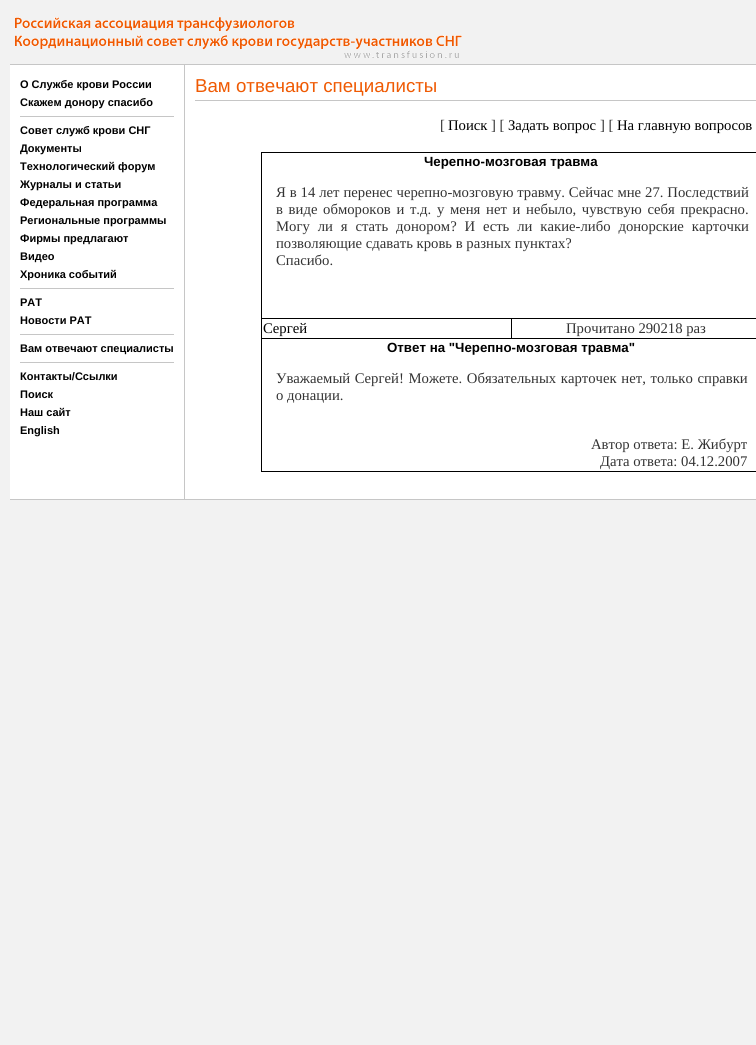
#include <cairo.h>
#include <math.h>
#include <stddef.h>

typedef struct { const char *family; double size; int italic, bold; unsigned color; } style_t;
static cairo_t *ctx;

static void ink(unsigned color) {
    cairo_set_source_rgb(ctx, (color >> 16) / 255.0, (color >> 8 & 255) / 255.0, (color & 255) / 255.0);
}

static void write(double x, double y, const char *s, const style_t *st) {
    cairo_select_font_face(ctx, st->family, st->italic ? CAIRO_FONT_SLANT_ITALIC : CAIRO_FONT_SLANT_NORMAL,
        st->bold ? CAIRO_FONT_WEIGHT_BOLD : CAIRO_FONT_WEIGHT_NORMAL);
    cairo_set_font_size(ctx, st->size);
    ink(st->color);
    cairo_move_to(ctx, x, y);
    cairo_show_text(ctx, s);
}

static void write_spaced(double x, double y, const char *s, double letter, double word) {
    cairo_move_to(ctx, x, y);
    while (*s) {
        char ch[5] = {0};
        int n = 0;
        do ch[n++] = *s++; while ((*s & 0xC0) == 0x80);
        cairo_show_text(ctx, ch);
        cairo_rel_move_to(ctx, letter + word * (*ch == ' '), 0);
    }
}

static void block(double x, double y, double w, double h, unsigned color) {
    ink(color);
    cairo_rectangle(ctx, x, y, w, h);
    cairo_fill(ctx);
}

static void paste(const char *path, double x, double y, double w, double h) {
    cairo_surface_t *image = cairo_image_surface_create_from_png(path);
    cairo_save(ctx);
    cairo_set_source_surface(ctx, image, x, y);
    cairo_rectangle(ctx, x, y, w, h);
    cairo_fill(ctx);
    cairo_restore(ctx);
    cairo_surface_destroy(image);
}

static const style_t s1 = {"Liberation Sans", 11, 0, 1, 0x000000};
static const style_t s2 = {"Liberation Sans", 18.7, 0, 0, 0xef5a03};
static const style_t s3 = {"Liberation Serif", 14.7, 0, 0, 0x333333};
static const style_t s4 = {"Liberation Serif", 14.7, 0, 0, 0x000000};
static const style_t s5 = {"Liberation Sans", 13.3, 0, 1, 0x000000};

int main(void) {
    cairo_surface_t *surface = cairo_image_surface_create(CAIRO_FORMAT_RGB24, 756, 1045);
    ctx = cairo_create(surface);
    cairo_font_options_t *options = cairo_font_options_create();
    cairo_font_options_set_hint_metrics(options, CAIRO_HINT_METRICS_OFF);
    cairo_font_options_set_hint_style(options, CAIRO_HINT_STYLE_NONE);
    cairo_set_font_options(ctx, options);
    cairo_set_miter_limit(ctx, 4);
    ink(0xf2f2f2);
    cairo_paint(ctx);
    block(10, 65, 746, 434, 0xffffff);
    paste("pic1.png", 15, 17, 447, 41);
    block(10, 64, 746, 1, 0xc6c6c6);
    block(184, 65, 1, 434, 0xc6c6c6);
    write(20, 88, "О Службе крови России", &s1);
    write(20, 106, "Скажем донору спасибо", &s1);
    block(20, 116, 154, 1, 0xc6c6c6);
    write(20, 134, "Совет служб крови СНГ", &s1);
    write(20, 152, "Документы", &s1);
    write(20, 170, "Технологический форум", &s1);
    write(20, 188, "Журналы и статьи", &s1);
    write(20, 206, "Федеральная программа", &s1);
    write(20, 224, "Региональные программы", &s1);
    write(20, 242, "Фирмы предлагают", &s1);
    write(20, 260, "Видео", &s1);
    write(20, 278, "Хроника событий", &s1);
    block(20, 288, 154, 1, 0xc6c6c6);
    write(20, 306, "РАТ", &s1);
    write(20, 324, "Новости РАТ", &s1);
    block(20, 334, 154, 1, 0xc6c6c6);
    write(20, 352, "Вам отвечают специалисты", &s1);
    block(20, 362, 154, 1, 0xc6c6c6);
    write(20, 380, "Контакты/Ссылки", &s1);
    write(20, 398, "Поиск", &s1);
    write(20, 416, "Наш сайт", &s1);
    write(20, 434, "English", &s1);
    write(195, 92, "Вам отвечают специалисты", &s2);
    block(195, 100, 561, 1, 0xc6c6c6);
    write(440, 130, "[", &s3);
    write(448, 130, "Поиск", &s4);
    write(491, 130, "] [", &s3);
    write(508, 130, "Задать вопрос", &s4);
    write(600, 130, "] [", &s3);
    write(617, 130, "На главную вопросов", &s4);
    block(261, 152, 495, 320, 0x000000);
    block(262, 153, 494, 165, 0xffffff);
    write(424, 166, "Черепно-мозговая травма", &s5);
    cairo_select_font_face(ctx, "Liberation Serif", CAIRO_FONT_SLANT_NORMAL, CAIRO_FONT_WEIGHT_NORMAL);
    cairo_set_font_size(ctx, 14.7);
    ink(0x333333);
    write_spaced(276, 197, "Я в 14 лет перенес черепно-мозговую травму. Сейчас мне 27. Последствий", 0, 0.25);
    write_spaced(276, 214, "в виде обмороков и т.д. у меня нет и небыло, чувствую себя прекрасно.", 0, 2);
    write_spaced(276, 231, "Могу ли я стать донором? И есть ли какие-либо донорские карточки", 0, 4.25);
    write(276, 248, "позволяющие сдавать кровь в разных пунктах?", &s3);
    write(276, 265, "Спасибо.", &s3);
    block(262, 319, 249, 19, 0xffffff);
    write(263, 333, "Сергей", &s4);
    block(512, 319, 244, 19, 0xffffff);
    write(566, 333, "Прочитано 290218 раз", &s3);
    block(262, 339, 494, 132, 0xffffff);
    write(387, 352, "Ответ на \"Черепно-мозговая травма\"", &s5);
    cairo_select_font_face(ctx, "Liberation Serif", CAIRO_FONT_SLANT_NORMAL, CAIRO_FONT_WEIGHT_NORMAL);
    cairo_set_font_size(ctx, 14.7);
    ink(0x333333);
    write_spaced(276, 383, "Уважаемый Сергей! Можете. Обязательных карточек нет, только справки", 0, 1);
    write(276, 400, "о донации.", &s3);
    write(591, 449, "Автор ответа: Е. Жибурт", &s3);
    write(600, 466, "Дата ответа: 04.12.2007", &s3);
    block(10, 499, 746, 1, 0xc6c6c6);
    cairo_surface_write_to_png(surface, "screenshot.png");
    cairo_font_options_destroy(options);
    cairo_destroy(ctx);
    cairo_surface_destroy(surface);
    return 0;
}
